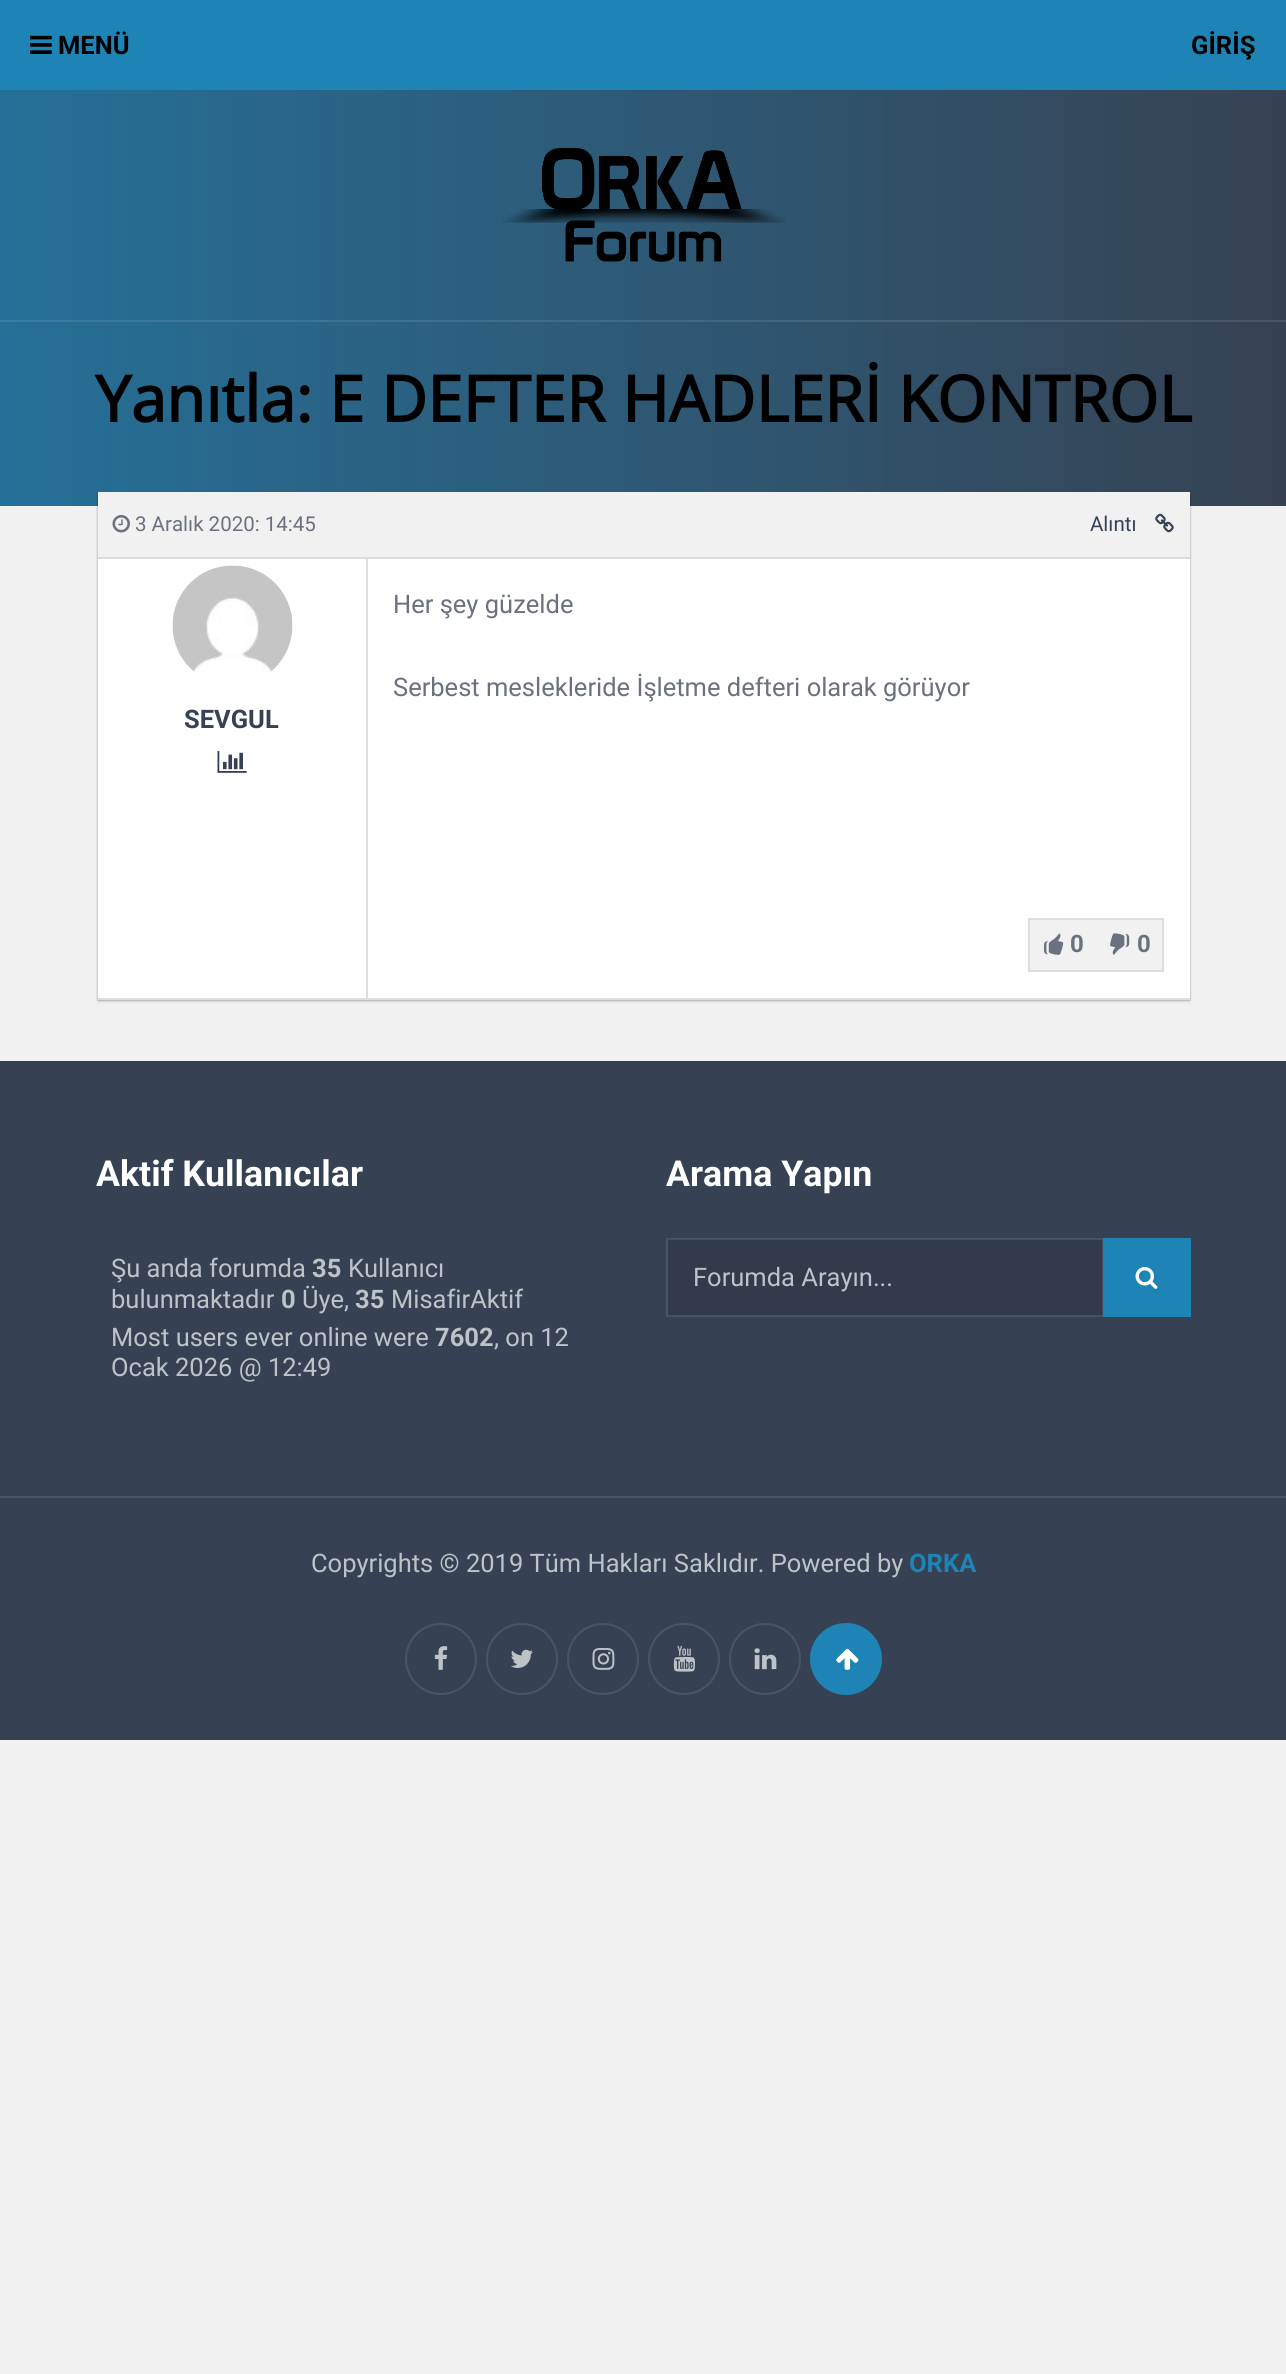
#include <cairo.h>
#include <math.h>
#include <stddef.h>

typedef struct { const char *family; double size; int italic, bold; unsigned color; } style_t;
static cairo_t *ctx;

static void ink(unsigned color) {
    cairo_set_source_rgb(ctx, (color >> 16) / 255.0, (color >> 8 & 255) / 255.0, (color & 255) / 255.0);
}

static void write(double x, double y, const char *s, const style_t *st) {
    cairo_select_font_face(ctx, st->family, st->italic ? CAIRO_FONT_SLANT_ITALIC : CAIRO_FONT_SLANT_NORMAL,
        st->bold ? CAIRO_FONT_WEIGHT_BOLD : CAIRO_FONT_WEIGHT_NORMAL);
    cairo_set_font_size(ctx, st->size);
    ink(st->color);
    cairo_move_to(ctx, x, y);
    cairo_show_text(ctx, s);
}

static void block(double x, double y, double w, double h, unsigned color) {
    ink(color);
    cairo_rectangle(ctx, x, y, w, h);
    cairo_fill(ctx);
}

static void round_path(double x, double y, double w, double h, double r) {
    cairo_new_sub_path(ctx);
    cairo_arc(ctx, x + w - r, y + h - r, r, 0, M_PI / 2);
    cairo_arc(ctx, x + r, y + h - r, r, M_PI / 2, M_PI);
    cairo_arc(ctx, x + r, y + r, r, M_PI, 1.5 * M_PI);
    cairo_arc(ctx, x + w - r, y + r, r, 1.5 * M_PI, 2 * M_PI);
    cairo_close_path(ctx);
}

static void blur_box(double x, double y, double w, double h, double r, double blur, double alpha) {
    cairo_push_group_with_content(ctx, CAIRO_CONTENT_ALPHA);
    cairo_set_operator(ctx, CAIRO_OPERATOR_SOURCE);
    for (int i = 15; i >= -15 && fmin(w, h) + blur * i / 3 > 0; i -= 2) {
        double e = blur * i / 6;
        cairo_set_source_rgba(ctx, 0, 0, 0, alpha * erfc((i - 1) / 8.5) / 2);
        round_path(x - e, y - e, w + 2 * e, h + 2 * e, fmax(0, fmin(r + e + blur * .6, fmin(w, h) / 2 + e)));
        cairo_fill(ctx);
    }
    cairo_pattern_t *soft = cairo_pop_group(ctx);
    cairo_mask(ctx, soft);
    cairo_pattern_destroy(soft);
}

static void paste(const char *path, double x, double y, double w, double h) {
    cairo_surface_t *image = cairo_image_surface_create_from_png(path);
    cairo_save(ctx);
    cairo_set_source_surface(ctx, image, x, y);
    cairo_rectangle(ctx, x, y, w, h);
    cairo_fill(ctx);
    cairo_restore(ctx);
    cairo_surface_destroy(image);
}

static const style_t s1 = {"Roboto", 25.5, 0, 1, 0x000000};
static const style_t s2 = {"Open Sans", 63.75, 0, 1, 0x000000};
static const style_t s3 = {"Roboto", 20.5, 0, 0, 0x6b717e};
static const style_t s4 = {"Roboto", 20.5, 0, 0, 0x364253};
static const style_t s5 = {"Roboto", 25.5, 0, 1, 0x364253};
static const style_t s6 = {"Roboto", 25.5, 0, 0, 0x6b717e};
static const style_t s7 = {"Roboto", 24, 0, 1, 0x6b717e};
static const style_t s8 = {"Roboto", 35.75, 0, 1, 0xffffff};
static const style_t s9 = {"Roboto", 25.5, 0, 0, 0xbdc3c7};
static const style_t s10 = {"Roboto", 25.5, 0, 1, 0xbdc3c7};
static const style_t s11 = {"Roboto", 25.5, 0, 1, 0x1d84b5};

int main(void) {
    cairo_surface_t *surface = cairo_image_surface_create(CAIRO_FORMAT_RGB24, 1286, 2374);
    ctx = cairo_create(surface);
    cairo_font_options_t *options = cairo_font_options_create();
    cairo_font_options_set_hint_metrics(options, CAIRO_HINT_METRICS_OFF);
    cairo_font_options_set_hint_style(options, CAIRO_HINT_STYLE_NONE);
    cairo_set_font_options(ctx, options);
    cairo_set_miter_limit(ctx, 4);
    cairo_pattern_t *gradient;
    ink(0xf1f1f1);
    cairo_paint(ctx);
    block(0, 0, 1286, 90, 0x1d84b5);
    paste("pic1.png", 30, 35, 22, 19);
    write(58, 54, "MENÜ", &s1);
    write(1191, 54, "GİRİŞ", &s1);
    gradient = cairo_pattern_create_linear(0, 253, 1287, 253);
    cairo_pattern_add_color_stop_rgba(gradient, 0, 0.145, 0.439, 0.596, 1);
    cairo_pattern_add_color_stop_rgba(gradient, 1, 0.212, 0.259, 0.325, 1);
    cairo_set_source(ctx, gradient);
    cairo_pattern_destroy(gradient);
    cairo_rectangle(ctx, 0, 90, 1286, 416);
    cairo_fill(ctx);
    paste("pic2.png", 501, 147, 286, 115);
    gradient = cairo_pattern_create_linear(0, 253, 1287, 253);
    cairo_pattern_add_color_stop_rgba(gradient, 0, 0.231, 0.494, 0.635, 1);
    cairo_pattern_add_color_stop_rgba(gradient, 1, 0.29, 0.333, 0.392, 1);
    cairo_set_source(ctx, gradient);
    cairo_pattern_destroy(gradient);
    cairo_rectangle(ctx, 0, 320, 1286, 2);
    cairo_fill(ctx);
    write(95, 422, "Yanıtla: E DEFTER HADLERİ KONTROL", &s2);
    ink(0x000000);
    blur_box(98, 494, 1092, 507, 0, 1.5, 0.24);
    cairo_save(ctx);
    cairo_rectangle(ctx, 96, 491, 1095, 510);
    cairo_clip(ctx);
    blur_box(98, 494, 1092, 507, 0, 2, 0.12);
    cairo_restore(ctx);
    block(98, 559, 1092, 439, 0xffffff);
    block(98, 492, 1092, 65, 0xf1f1f1);
    block(98, 557, 1092, 2, 0xdddddd);
    paste("pic3.png", 112, 515, 18, 18);
    write(135, 531, "3 Aralık 2020: 14:45", &s3);
    write(1090, 531, "Alıntı", &s4);
    paste("pic4.png", 1155, 513, 19, 20);
    block(98, 998, 1092, 2, 0xdddddd);
    block(366, 558, 2, 440, 0xdddddd);
    paste("pic5.png", 172, 565, 121, 107);
    write(184, 728, "SEVGUL", &s5);
    paste("pic6.png", 217, 750, 30, 23);
    write(393, 613, "Her şey güzelde", &s6);
    write(393, 696, "Serbest meslekleride İşletme defteri olarak görüyor", &s6);
    ink(0xf1f1f1);
    cairo_rectangle(ctx, 1029, 919, 134, 52);
    cairo_fill_preserve(ctx);
    ink(0xdddddd);
    cairo_stroke(ctx);
    paste("pic7.png", 1044, 933, 20, 22);
    write(1070, 952, "0", &s7);
    paste("pic8.png", 1110, 933, 20, 22);
    write(1137, 952, "0", &s7);
    block(0, 1061, 1286, 679, 0x364253);
    write(96, 1186, "Aktif Kullanıcılar", &s8);
    write(111, 1277, "Şu anda forumda", &s9);
    write(312, 1277, "35", &s10);
    write(348, 1277, "Kullanıcı", &s9);
    write(111, 1308, "bulunmaktadır", &s9);
    write(281, 1308, "0", &s10);
    write(302, 1308, "Üye,", &s9);
    write(355, 1308, "35", &s10);
    write(391, 1308, "MisafirAktif", &s9);
    write(111, 1346, "Most users ever online were", &s9);
    write(435, 1346, "7602", &s10);
    write(494, 1346, ", on 12", &s9);
    write(111, 1376, "Ocak 2026 @ 12:49", &s9);
    write(666, 1186, "Arama Yapın", &s8);
    block(668, 1239, 435, 77, 0x313b4b);
    cairo_rectangle(ctx, 667, 1239, 436, 77);
    cairo_set_source_rgba(ctx, 1, 1, 1, 0.1);
    cairo_stroke(ctx);
    write(693, 1286, "Forumda Arayın...", &s9);
    block(1103, 1238, 88, 79, 0x1d84b5);
    paste("pic9.png", 1135, 1267, 23, 22);
    block(0, 1496, 1286, 2, 0x4a5564);
    write(311, 1572, "Copyrights © 2019 Tüm Hakları Saklıdır. Powered by", &s9);
    write(909, 1572, "ORKA", &s11);
    cairo_new_path(ctx);
    cairo_arc(ctx, 441, 1659, 35, 0, 2 * M_PI);
    ink(0x4a5564);
    cairo_stroke(ctx);
    paste("pic10.png", 434, 1646, 14, 24);
    cairo_arc(ctx, 522, 1659, 35, 0, 2 * M_PI);
    cairo_stroke(ctx);
    paste("pic11.png", 511, 1649, 22, 19);
    cairo_arc(ctx, 603, 1659, 35, 0, 2 * M_PI);
    cairo_stroke(ctx);
    paste("pic12.png", 592, 1648, 23, 22);
    cairo_arc(ctx, 684, 1659, 35, 0, 2 * M_PI);
    cairo_stroke(ctx);
    paste("pic13.png", 673, 1646, 22, 26);
    cairo_arc(ctx, 765, 1659, 35, 0, 2 * M_PI);
    cairo_stroke(ctx);
    paste("pic14.png", 754, 1648, 23, 22);
    ink(0x1d84b5);
    cairo_arc(ctx, 846, 1659, 35, 0, 2 * M_PI);
    cairo_fill_preserve(ctx);
    cairo_stroke(ctx);
    paste("pic15.png", 836, 1648, 23, 22);
    cairo_surface_write_to_png(surface, "screenshot.png");
    cairo_font_options_destroy(options);
    cairo_destroy(ctx);
    cairo_surface_destroy(surface);
    return 0;
}
